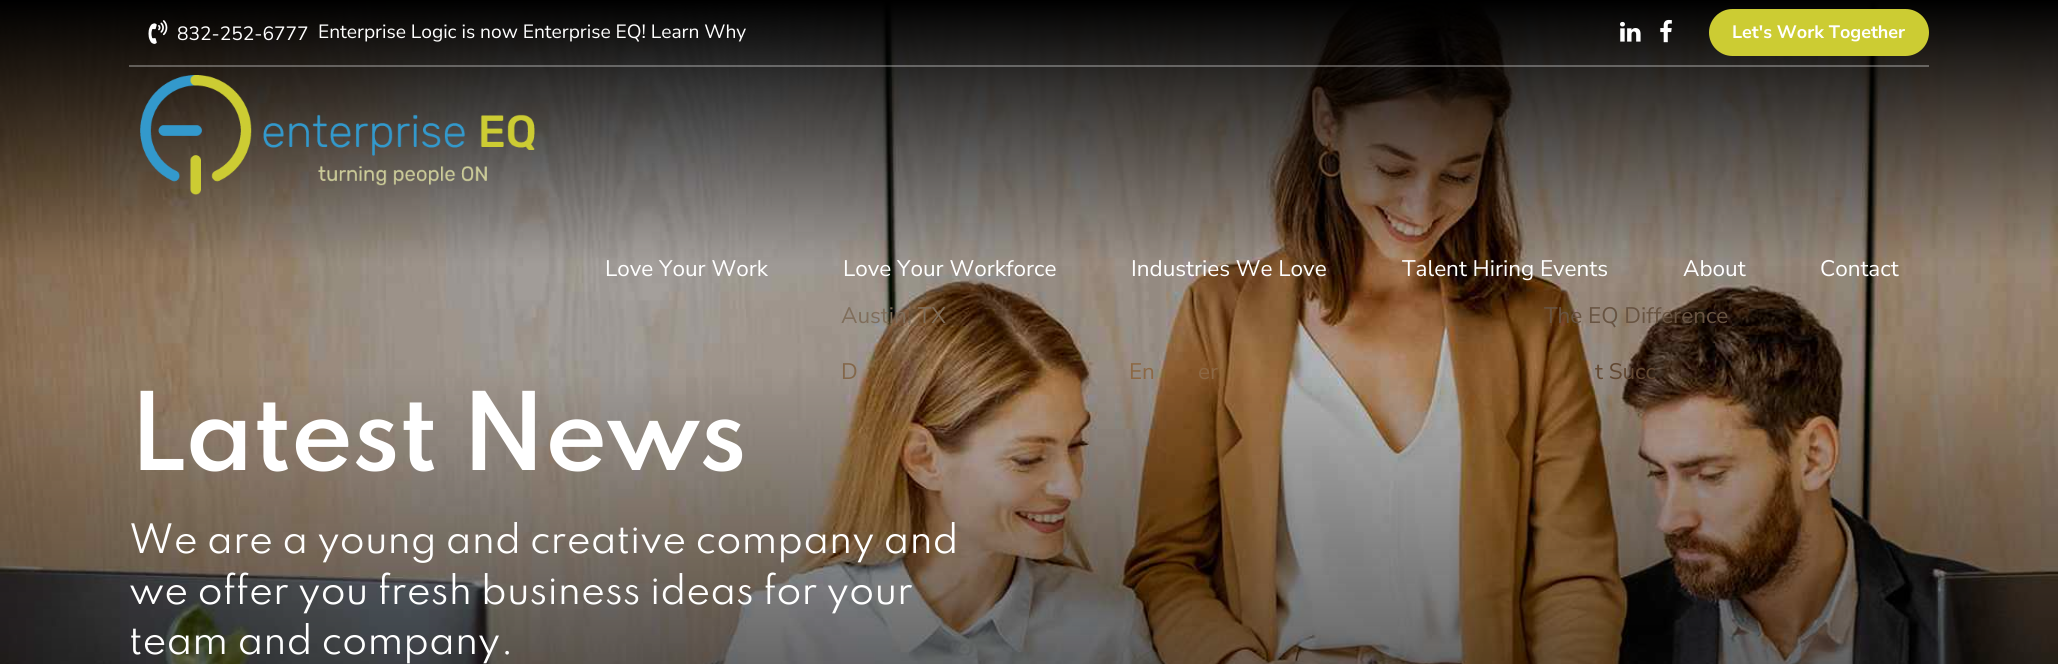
import math
import cairo

surface = cairo.ImageSurface(cairo.FORMAT_RGB24, 2058, 664)
c = cairo.Context(surface)
options = cairo.FontOptions()
options.set_hint_metrics(cairo.HINT_METRICS_OFF)
options.set_hint_style(cairo.HINT_STYLE_NONE)
c.set_font_options(options)
c.set_miter_limit(4)
def C(code):
 c.set_source_rgb(*(v / 255 for v in bytes.fromhex(code[-6:])))
def F(family, size, italic, bold):
 c.select_font_face(family, cairo.FONT_SLANT_ITALIC if italic else cairo.FONT_SLANT_NORMAL, cairo.FONT_WEIGHT_BOLD if bold else cairo.FONT_WEIGHT_NORMAL)
 c.set_font_size(size)
def T(x, y, s):
 c.move_to(x, y)
 c.show_text(s)
def L(x, y, s, letter, word):
 c.move_to(x, y)
 for ch in s:
  c.show_text(ch)
  c.rel_move_to(letter + word * (ch == ' '), 0)
def R(x, y, w, h):
 c.rectangle(x, y, w, h)
 c.fill()
def Q(x, y, w, h, r):
 c.new_sub_path()
 for i, (u, v) in enumerate([(x + w - r, y + h - r), (x + r, y + h - r), (x + r, y + r), (x + w - r, y + r)]):
  c.arc(u, v, r, i * math.pi / 2, (i + 1) * math.pi / 2)
 c.close_path()
def I(path, x, y, w, h):
 c.save()
 c.set_source_surface(cairo.ImageSurface.create_from_png(path), x, y)
 c.rectangle(x, y, w, h)
 c.fill()
 c.restore()
C('ffffff')
c.paint()
I('5.png',0,0,2058,664)
c.set_source_rgba(1,1,1,0.3)
R(129,65,1044,2)
I('1.png',148,20,20,24)
F('Nunito Sans',19.2,0,0)
C('ffffff')
T(177,40,'832-252-6777')
T(318,38,'Enterprise Logic is now Enterprise EQ! Learn Why')
c.set_source_rgba(1,1,1,0.3)
R(1173,65,756,2)
I('2.png',1620,21,21,21)
I('3.png',1660,19,12,24)
C('cccc33')
Q(1709,9,220,47,23.5)
c.fill()
F('Nunito Sans',18,0,1)
C('ffffff')
T(1732,38,'Let\'s Work Together')
I('4.png',140,75,395,120)
F('Nunito Sans',22.5,0,0)
T(605,276,'Love Your Work')
T(843,276,'Love Your Workforce')
C('7f6e5b')
T(841,323,'Austin, TX')
C('83674a')
T(841,379,'D')
C('ffffff')
T(1131,276,'Industries We Love')
C('8c6844')
T(1129,379,'En')
T(1198,379,'er')
C('ffffff')
T(1402,276,'Talent Hiring Events')
T(1683,276,'About')
C('685442')
T(1544,323,'The EQ Difference')
C('624832')
T(1595,379,'t Succ')
C('ffffff')
T(1820,276,'Contact')
F('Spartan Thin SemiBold',96,0,0)
L(129,470,'Latest News',-1.5,0)
F('Spartan Thin',36,0,0)
T(129,553,'We are a young and creative company and')
T(129,604,'we offer you fresh business ideas for your')
T(129,654,'team and company.')
surface.write_to_png('o.png')
